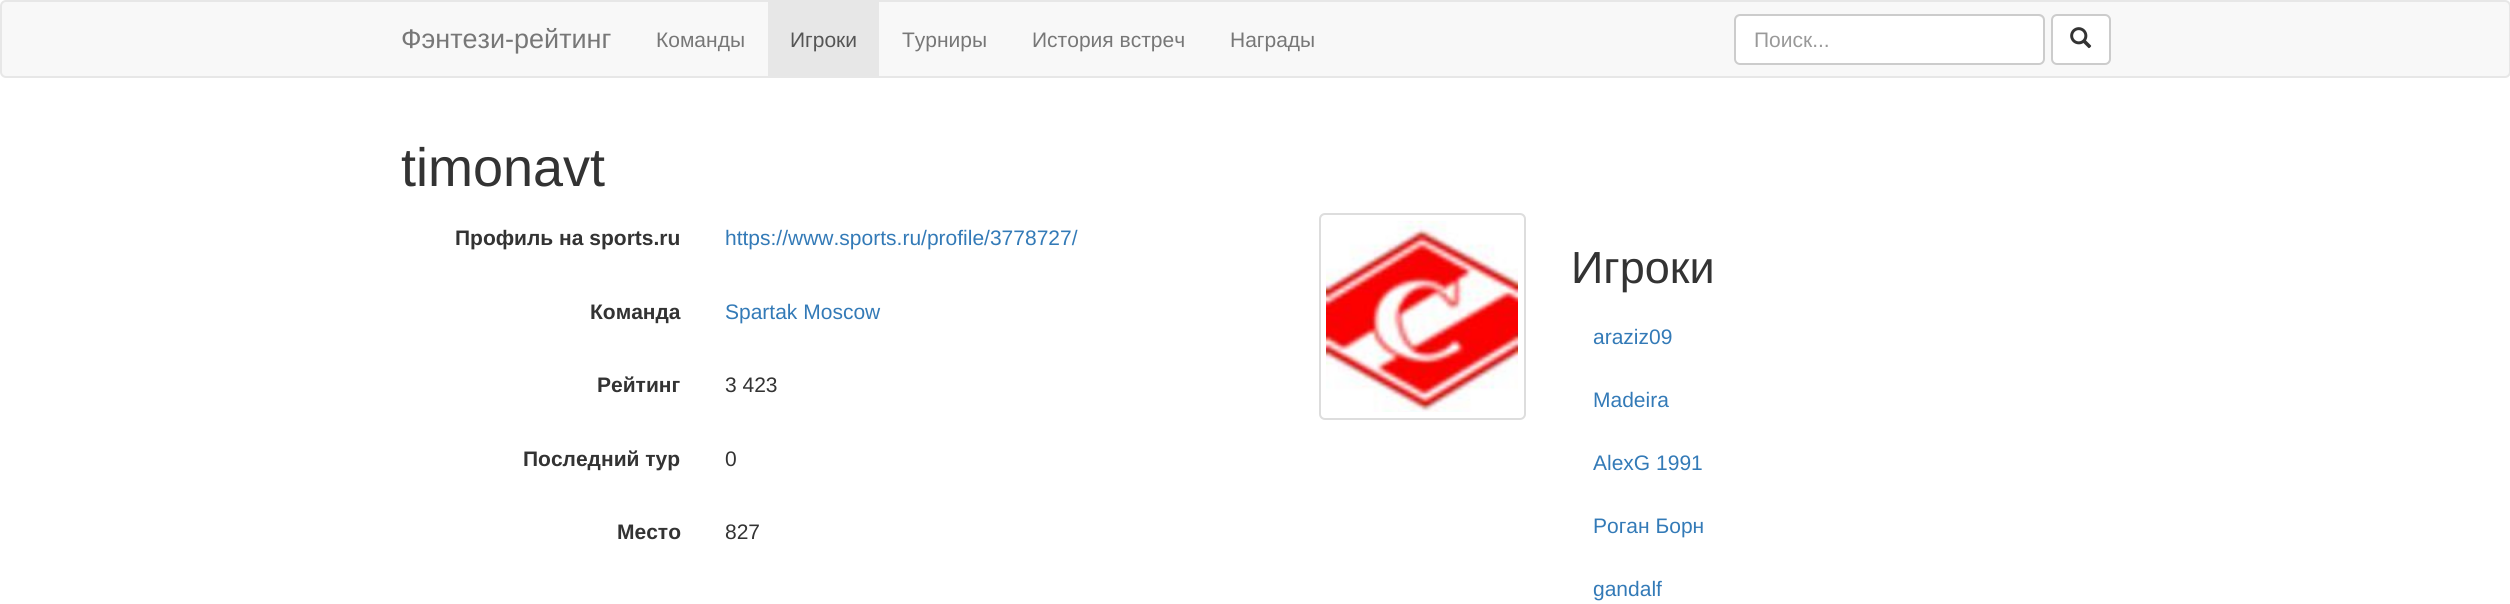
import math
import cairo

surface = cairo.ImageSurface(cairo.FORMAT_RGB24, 2510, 604)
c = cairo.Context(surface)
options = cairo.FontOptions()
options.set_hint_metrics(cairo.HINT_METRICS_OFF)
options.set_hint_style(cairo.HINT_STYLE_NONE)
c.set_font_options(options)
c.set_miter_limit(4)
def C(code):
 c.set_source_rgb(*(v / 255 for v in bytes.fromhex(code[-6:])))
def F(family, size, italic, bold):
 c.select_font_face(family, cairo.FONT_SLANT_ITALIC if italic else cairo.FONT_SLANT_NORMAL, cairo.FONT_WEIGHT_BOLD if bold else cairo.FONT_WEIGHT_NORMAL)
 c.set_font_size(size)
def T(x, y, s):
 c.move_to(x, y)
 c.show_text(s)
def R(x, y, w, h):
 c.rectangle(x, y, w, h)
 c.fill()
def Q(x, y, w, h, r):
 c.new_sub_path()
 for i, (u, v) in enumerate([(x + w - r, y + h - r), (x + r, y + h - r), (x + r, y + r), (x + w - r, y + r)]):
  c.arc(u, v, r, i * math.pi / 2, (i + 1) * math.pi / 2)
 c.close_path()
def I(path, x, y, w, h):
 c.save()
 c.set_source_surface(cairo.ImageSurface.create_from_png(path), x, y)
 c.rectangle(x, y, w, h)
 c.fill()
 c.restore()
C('ffffff')
c.paint()
C('f8f8f8')
Q(1,1,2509,76,5)
c.fill_preserve()
C('e7e7e7')
c.stroke()
F('Liberation Sans',27,0,0)
C('777777')
T(401,48,'Фэнтези-рейтинг')
F('Liberation Sans',21,0,0)
T(656,47,'Команды')
C('e7e7e7')
R(768,2,111,74)
C('555555')
T(790,47,'Игроки')
C('777777')
T(902,47,'Турниры')
T(1032,47,'История встреч')
T(1230,47,'Награды')
C('ffffff')
Q(1734,14,311,51,6)
c.fill()
C('ececec')
c.new_path()
c.move_to(1740,16)
c.line_to(2038,16)
c.curve_to(2041,16,2043,19,2043,21)
c.curve_to(2043,18,2041,15,2038,15)
c.line_to(1741,15)
c.curve_to(1738,15,1736,18,1736,21)
c.curve_to(1736,19,1738,16,1740,16)
c.close_path()
c.fill()
Q(1735,15,309,49,5)
C('cccccc')
c.stroke()
C('999999')
T(1754,47,'Поиск...')
C('ffffff')
Q(2052,15,58,49,5)
c.fill_preserve()
C('cccccc')
c.stroke()
I('1.png',2070,27,22,22)
F('Liberation Sans',54,0,0)
C('333333')
T(401,186,'timonavt')
F('Liberation Sans',21,0,1)
T(455,245,'Профиль на sports.ru')
F('Liberation Sans',21,0,0)
C('337ab7')
T(725,245,'https://www.sports.ru/profile/3778727/')
F('Liberation Sans',21,0,1)
C('333333')
T(590,319,'Команда')
F('Liberation Sans',21,0,0)
C('337ab7')
T(725,319,'Spartak Moscow')
F('Liberation Sans',21,0,1)
C('333333')
T(597,392,'Рейтинг')
F('Liberation Sans',21,0,0)
T(725,392,'3 423')
F('Liberation Sans',21,0,1)
T(523,466,'Последний тур')
F('Liberation Sans',21,0,0)
T(725,466,'0')
F('Liberation Sans',21,0,1)
T(617,539,'Место')
F('Liberation Sans',21,0,0)
T(725,539,'827')
Q(1320,214,205,205,5)
C('dddddd')
c.stroke()
I('2.png',1326,220,192,192)
F('Liberation Sans',45,0,0)
C('333333')
T(1571,283,'Игроки')
F('Liberation Sans',21,0,0)
C('337ab7')
T(1593,344,'araziz09')
T(1593,407,'Madeira')
T(1593,470,'AlexG 1991')
T(1593,533,'Роган Борн')
T(1593,596,'gandalf')
surface.write_to_png('o.png')
